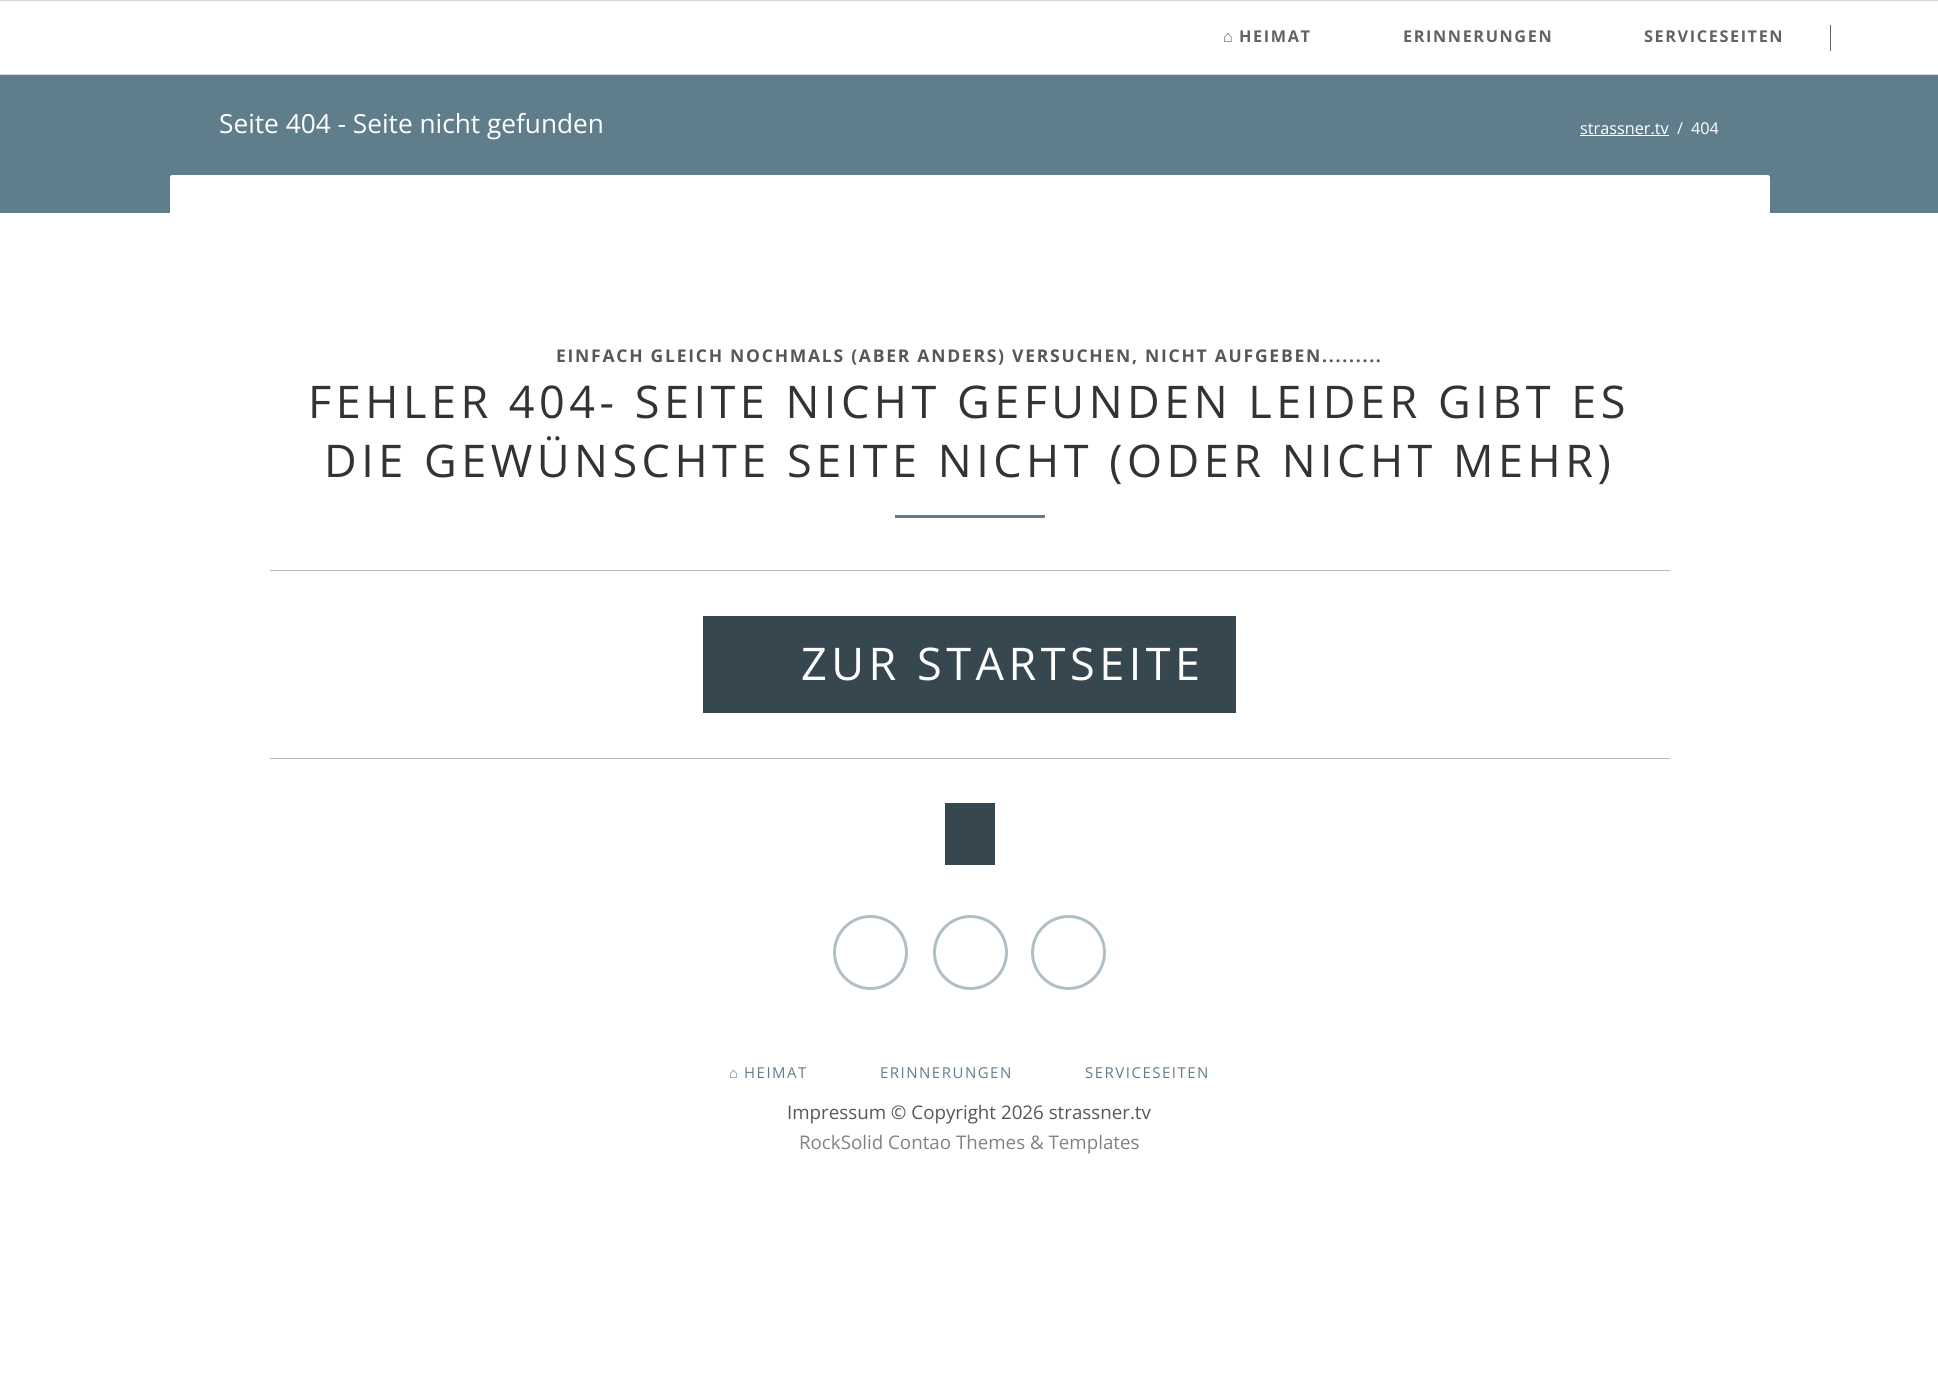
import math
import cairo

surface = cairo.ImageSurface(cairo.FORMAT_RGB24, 1938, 1389)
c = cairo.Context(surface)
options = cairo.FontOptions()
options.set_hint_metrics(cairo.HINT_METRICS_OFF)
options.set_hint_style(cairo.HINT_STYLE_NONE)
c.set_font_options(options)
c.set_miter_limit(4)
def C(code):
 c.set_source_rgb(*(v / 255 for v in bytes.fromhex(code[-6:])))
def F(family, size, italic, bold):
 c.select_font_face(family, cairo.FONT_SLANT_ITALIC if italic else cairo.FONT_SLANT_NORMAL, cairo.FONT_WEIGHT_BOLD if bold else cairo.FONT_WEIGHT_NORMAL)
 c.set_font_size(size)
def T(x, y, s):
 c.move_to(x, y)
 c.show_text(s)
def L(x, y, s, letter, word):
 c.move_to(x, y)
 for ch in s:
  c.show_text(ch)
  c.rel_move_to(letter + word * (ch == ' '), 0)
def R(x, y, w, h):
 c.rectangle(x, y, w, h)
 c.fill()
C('ffffff')
c.paint()
C('cfd8dc')
R(0,0,1938,1)
R(0,74,1938,1)
F('Liberation Serif',16.25,0,0)
C('636363')
L(1223,42,'⌂',1.6,0)
F('Open Sans',16.25,0,1)
L(1239,42,'HEIMAT',1.6,0)
L(1403,42,'ERINNERUNGEN',1.6,0)
L(1644,42,'SERVICESEITEN',1.6,0)
R(1830,25,1,26)
C('607d8b')
R(0,75,1938,138)
F('Open Sans',26.25,0,0)
C('ffffff')
T(219,133,'Seite 404 - Seite nicht gefunden')
F('Open Sans',16.25,0,0)
T(1580,134,'strassner.tv')
R(1580,135,89,1)
T(1677,134,'/')
T(1691,134,'404')
c.new_path()
c.move_to(172.5,175)
c.line_to(1767.5,175)
c.curve_to(1769,175,1770,176,1770,177.5)
c.line_to(1770,834)
c.line_to(170,834)
c.line_to(170,177.5)
c.curve_to(170,176,171,175,172.5,175)
c.close_path()
c.fill()
F('Open Sans',17.5,0,1)
C('575757')
L(556,362,'EINFACH GLEICH NOCHMALS (ABER ANDERS) VERSUCHEN, NICHT AUFGEBEN.........',1.75,0)
F('Open Sans',45,0,0)
C('333333')
L(308,418,'FEHLER 404- SEITE NICHT GEFUNDEN LEIDER GIBT ES',4.5,0)
L(324,477,'DIE GEWÜNSCHTE SEITE NICHT (ODER NICHT MEHR)',4.5,0)
C('607d8b')
R(895,515,150,3)
C('b0bec5')
R(270,570,1400,1)
C('37474f')
R(703,616,533,97)
C('ffffff')
L(801,680,'ZUR STARTSEITE',4.5,0)
C('b0bec5')
R(270,758,1400,1)
C('37474f')
R(945,803,50,62)
c.new_path()
c.arc(870.5,952.5,36,0,2 * math.pi)
C('b0bec5')
c.set_line_width(3)
c.stroke()
c.arc(970.5,952.5,36,0,2 * math.pi)
c.stroke()
c.arc(1068.5,952.5,36,0,2 * math.pi)
c.stroke()
F('Liberation Serif',15,0,0)
C('607d8b')
L(729,1078,'⌂',1.5,0)
F('Open Sans',15,0,0)
L(744,1078,'HEIMAT',1.5,0)
L(880,1078,'ERINNERUNGEN',1.5,0)
L(1085,1078,'SERVICESEITEN',1.5,0)
F('Open Sans',18.75,0,0)
C('575757')
T(787,1119,'Impressum © Copyright 2026 strassner.tv')
C('818181')
T(799,1149,'RockSolid Contao Themes & Templates')
surface.write_to_png('o.png')
